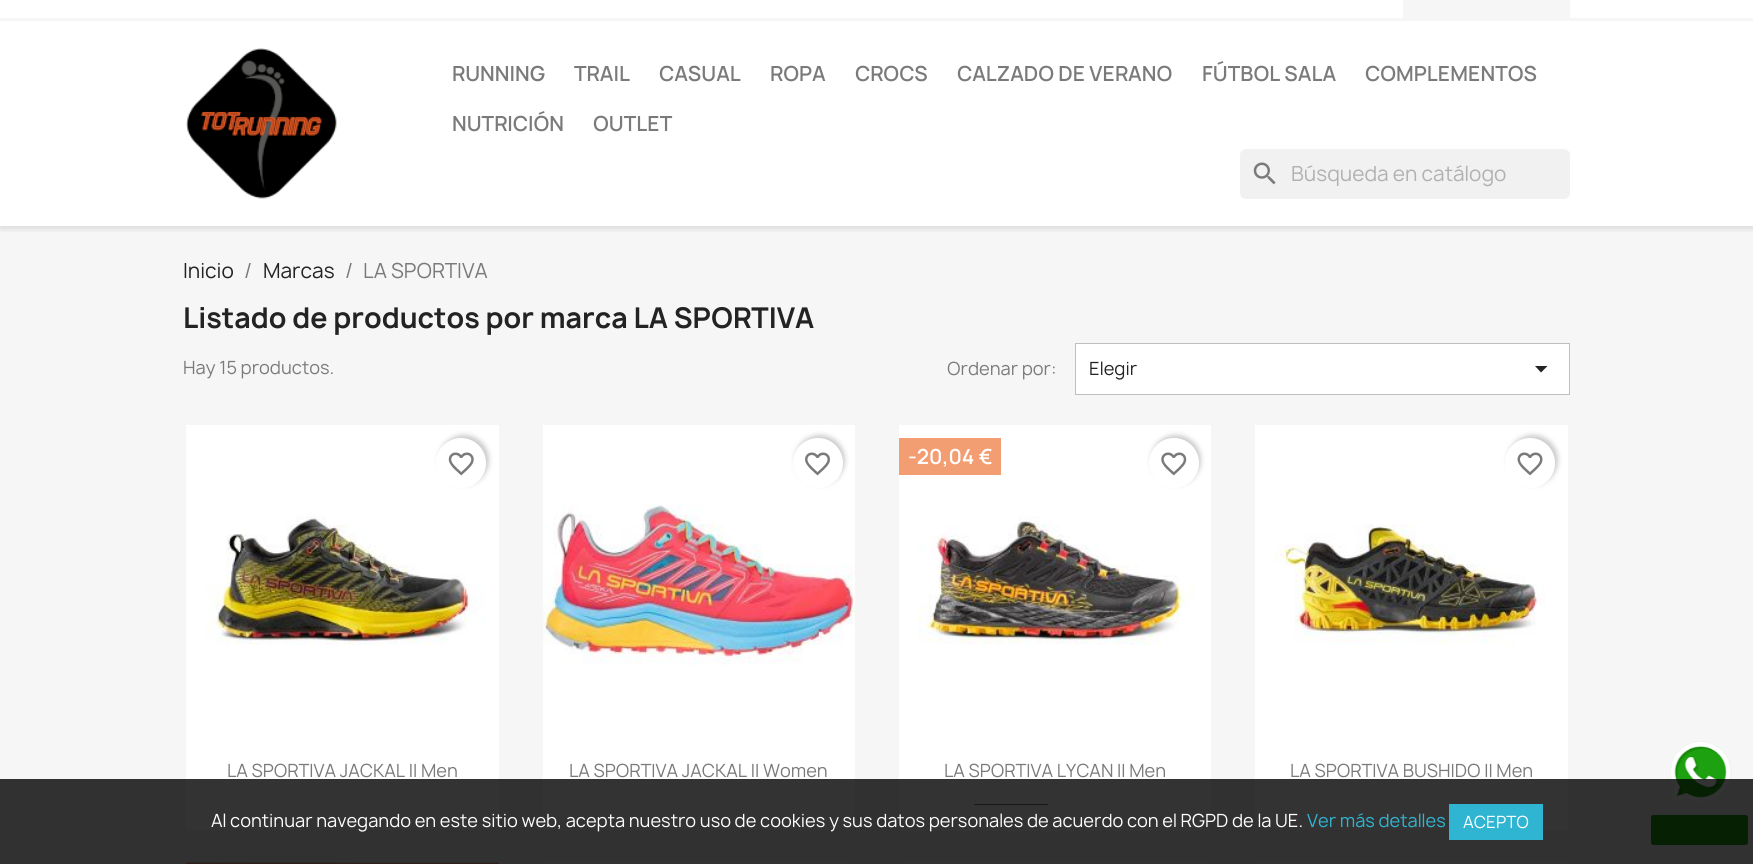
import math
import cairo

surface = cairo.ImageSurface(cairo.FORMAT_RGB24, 1753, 864)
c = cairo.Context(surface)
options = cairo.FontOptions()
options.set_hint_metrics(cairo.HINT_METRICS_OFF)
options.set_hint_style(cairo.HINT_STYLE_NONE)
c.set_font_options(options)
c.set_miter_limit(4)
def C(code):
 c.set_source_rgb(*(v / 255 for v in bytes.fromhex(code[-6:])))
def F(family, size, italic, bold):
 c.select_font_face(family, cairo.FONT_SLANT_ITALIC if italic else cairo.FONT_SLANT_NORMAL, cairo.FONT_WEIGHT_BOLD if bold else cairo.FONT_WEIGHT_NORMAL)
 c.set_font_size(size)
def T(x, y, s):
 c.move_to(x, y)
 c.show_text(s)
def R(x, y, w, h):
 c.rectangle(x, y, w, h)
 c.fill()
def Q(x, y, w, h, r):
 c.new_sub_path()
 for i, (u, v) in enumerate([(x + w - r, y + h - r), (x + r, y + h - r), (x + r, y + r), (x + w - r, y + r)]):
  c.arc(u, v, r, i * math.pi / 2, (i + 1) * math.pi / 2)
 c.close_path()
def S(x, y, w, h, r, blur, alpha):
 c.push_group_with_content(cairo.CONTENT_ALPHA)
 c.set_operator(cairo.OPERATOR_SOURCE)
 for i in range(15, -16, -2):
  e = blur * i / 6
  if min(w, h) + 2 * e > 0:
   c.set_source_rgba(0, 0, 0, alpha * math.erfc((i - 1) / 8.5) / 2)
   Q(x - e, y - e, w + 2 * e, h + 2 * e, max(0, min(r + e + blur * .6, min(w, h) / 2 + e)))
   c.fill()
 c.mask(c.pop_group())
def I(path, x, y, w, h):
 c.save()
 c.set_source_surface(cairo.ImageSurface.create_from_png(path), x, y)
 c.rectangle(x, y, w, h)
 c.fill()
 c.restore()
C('ffffff')
c.paint()
C('f6f6f6')
R(0,226,1753,638)
c.save()
c.rectangle(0,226,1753,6)
c.clip()
C('000000')
S(0,-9,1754,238,0,3,.11)
c.restore()
R(0,18,1753,3)
R(1403,0,167,18)
I('1.png',186,48,151,151)
F('Manrope SemiBold',20,0,0)
C('7a7a7a')
T(452,81,'RUNNING')
T(574,81,'TRAIL')
T(659,81,'CASUAL')
T(770,81,'ROPA')
T(855,81,'CROCS')
T(957,81,'CALZADO DE VERANO')
T(1202,81,'FÚTBOL SALA')
T(1365,81,'COMPLEMENTOS')
T(452,131,'NUTRICIÓN')
T(593,131,'OUTLET')
C('f1f1f1')
Q(1240,149,330,50,6)
c.fill()
I('2.png',1253,162,23,23)
F('Manrope',20,0,0)
C('b1b1b1')
T(1291,181,'Búsqueda en catálogo')
C('232323')
T(183,278,'Inicio')
C('7a7a7a')
T(244,278,'/')
C('232323')
T(263,278,'Marcas')
C('7a7a7a')
T(345,278,'/')
T(363,278,'LA SPORTIVA')
F('Manrope',27.5,0,1)
C('232323')
T(183,328,'Listado de productos por marca LA SPORTIVA')
F('Manrope',17.5,0,0)
C('7a7a7a')
T(183,374,'Hay 15 productos.')
T(947,375,'Ordenar por:')
C('ffffff')
c.rectangle(1075.5,343.5,494,51)
c.fill_preserve()
C('bfbfbf')
c.set_line_width(1)
c.stroke()
C('232323')
T(1089,375,'Elegir')
c.new_path()
c.move_to(1535,366)
c.line_to(1547.5,366)
c.line_to(1541,372.5)
c.close_path()
c.fill()
C('ffffff')
R(186,425,313,405)
C('000000')
S(439,435,50,50,25,2.5,.2)
C('ffffff')
c.arc(461,463,25,0,2 * math.pi)
c.fill()
I('3.png',448,452,26,24)
I('4.png',206,515,280,130)
C('7a7a7a')
T(227,777,'LA SPORTIVA JACKAL II Men')
C('ffffff')
R(543,425,312,405)
C('000000')
S(795,435,50,50,25,2.5,.2)
C('ffffff')
c.arc(818,463,25,0,2 * math.pi)
c.fill()
I('5.png',805,452,25,24)
I('6.png',543,504,312,161)
C('7a7a7a')
T(569,777,'LA SPORTIVA JACKAL II Women')
C('ffffff')
R(899,425,312,406)
C('f39d72')
R(899,438,102,37)
F('Manrope SemiBold',20,0,0)
C('ffffff')
T(908,464,'-20,04 €')
C('000000')
S(1151,435,50,50,25,2.5,.2)
C('ffffff')
c.arc(1174,463,25,0,2 * math.pi)
c.fill()
I('7.png',1161,452,26,24)
I('8.png',918,516,276,129)
F('Manrope',17.5,0,0)
C('7a7a7a')
T(944,777,'LA SPORTIVA LYCAN II Men')
R(974,804,74,1)
C('ffffff')
R(1255,425,313,405)
C('000000')
S(1508,435,50,50,25,2.5,.2)
C('ffffff')
c.arc(1530,463,25,0,2 * math.pi)
c.fill()
I('9.png',1517,452,26,24)
I('10.png',1274,524,271,121)
C('7a7a7a')
T(1290,777,'LA SPORTIVA BUSHIDO II Men')
I('11.png',186,862,313,1)
C('f39d72')
R(186,863,313,1)
C('ffffff')
R(543,863,312,1)
R(899,863,312,1)
R(1255,863,313,1)
I('12.png',1668,741,64,63)
C('1da110')
Q(1651,815,97,30,2.5)
c.fill()
c.set_source_rgba(0,0,0,0.8)
R(0,779,1753,85)
C('ffffff')
T(211,827,'Al continuar navegando en este sitio web, acepta nuestro uso de cookies y sus datos personales de acuerdo con el RGPD de la UE.')
C('2fb5d2')
T(1307,827,'Ver más detalles')
R(1449,804,94,36)
F('Manrope',16.25,0,0)
C('ffffff')
T(1463,828,'ACEPTO')
surface.write_to_png('o.png')
